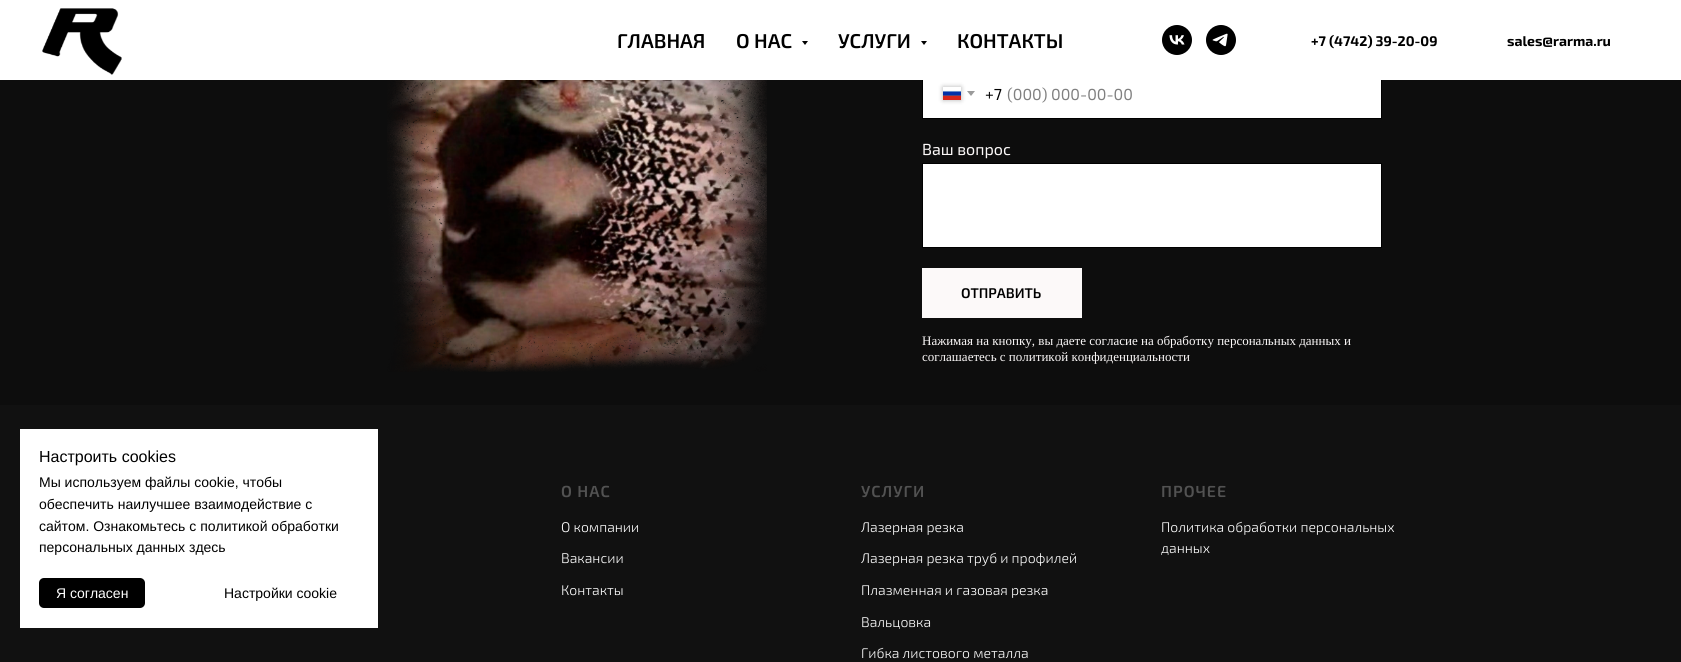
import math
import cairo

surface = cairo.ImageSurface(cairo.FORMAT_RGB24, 1681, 662)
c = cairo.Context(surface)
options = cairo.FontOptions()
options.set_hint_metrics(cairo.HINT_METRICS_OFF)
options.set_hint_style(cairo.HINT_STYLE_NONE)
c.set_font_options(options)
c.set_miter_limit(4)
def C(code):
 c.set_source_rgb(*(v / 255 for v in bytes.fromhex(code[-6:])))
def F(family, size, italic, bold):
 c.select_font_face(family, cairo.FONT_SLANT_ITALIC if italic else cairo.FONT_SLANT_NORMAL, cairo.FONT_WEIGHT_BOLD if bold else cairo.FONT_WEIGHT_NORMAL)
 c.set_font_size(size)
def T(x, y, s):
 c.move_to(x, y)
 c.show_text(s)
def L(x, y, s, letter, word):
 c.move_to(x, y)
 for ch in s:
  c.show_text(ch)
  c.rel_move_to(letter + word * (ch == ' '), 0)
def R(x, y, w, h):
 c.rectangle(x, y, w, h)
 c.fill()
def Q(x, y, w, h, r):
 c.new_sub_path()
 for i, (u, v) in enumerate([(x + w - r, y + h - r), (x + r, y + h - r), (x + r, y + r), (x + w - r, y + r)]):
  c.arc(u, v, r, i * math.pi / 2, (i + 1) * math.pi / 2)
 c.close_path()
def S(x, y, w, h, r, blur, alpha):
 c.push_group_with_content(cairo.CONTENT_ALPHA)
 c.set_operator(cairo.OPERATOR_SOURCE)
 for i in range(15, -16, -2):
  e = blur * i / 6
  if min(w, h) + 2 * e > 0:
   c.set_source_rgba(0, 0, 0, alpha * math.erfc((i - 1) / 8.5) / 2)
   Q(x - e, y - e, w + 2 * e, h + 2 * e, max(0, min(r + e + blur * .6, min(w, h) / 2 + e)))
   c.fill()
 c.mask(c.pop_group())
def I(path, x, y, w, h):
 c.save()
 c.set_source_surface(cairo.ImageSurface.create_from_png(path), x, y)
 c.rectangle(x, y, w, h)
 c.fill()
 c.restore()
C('111111')
c.paint()
C('0d0d0d')
R(0,80,1681,325)
C('ffffff')
R(923,80,458,38)
c.rectangle(922.5,69.5,459,49)
C('000000')
c.set_line_width(1)
c.stroke()
C('000000')
S(943,87,18,13,0,2.5,.3)
C('ffffff')
R(0,0,1681,80)
I('1.png',42,8,80,67)
F('Exo 2 SemiBold',20,0,0)
C('000000')
T(617,48,'ГЛАВНАЯ')
T(736,48,'О НАС')
c.new_path()
c.move_to(802,41)
c.line_to(808,41)
c.line_to(805,45)
c.close_path()
c.fill()
T(838,48,'УСЛУГИ')
c.new_path()
c.move_to(921,41)
c.line_to(927,41)
c.line_to(924,45)
c.close_path()
c.fill()
T(957,48,'КОНТАКТЫ')
I('2.png',1162,25,30,30)
I('3.png',1206,25,30,30)
F('Exo 2',14,0,1)
T(1311,46,'+7 (4742) 39-20-09')
T(1507,46,'sales@rarma.ru')
I('4.png',387,80,380,292)
I('5.png',943,87,18,13)
C('9a9a9a')
c.new_path()
c.move_to(967,91)
c.line_to(975,91)
c.line_to(971,96)
c.close_path()
c.fill()
F('Exo 2',16,0,0)
C('000000')
T(985,100,'+7')
C('808080')
T(1007,100,'(000) 000-00-00')
C('fcf9f9')
T(922,155,'Ваш вопрос')
C('ffffff')
c.rectangle(922.5,163.5,459,84)
c.fill_preserve()
C('000000')
c.stroke()
C('fcf9f9')
R(922,268,160,50)
F('Exo 2 SemiBold',14,0,0)
C('000000')
T(961,298,'ОТПРАВИТЬ')
F('Liberation Serif',13,0,0)
C('fcf9f9')
T(922,345,'Нажимая на кнопку, вы даете согласие на обработку персональных данных и')
T(922,361,'соглашаетесь c политикой конфиденциальности')
C('ffffff')
R(20,429,358,199)
F('Liberation Sans',16,0,0)
C('000000')
T(39,462,'Настроить cookies')
F('Liberation Sans',14,0,0)
T(39,487,'Мы используем файлы cookie, чтобы')
T(39,509,'обеспечить наилучшее взаимодействие с')
T(39,531,'сайтом. Ознакомьтесь с политикой обработки')
T(39,552,'персональных данных здесь')
Q(39,578,106,30,5)
c.fill()
C('ffffff')
T(56,598,'Я согласен')
C('000000')
T(224,598,'Настройки cookie')
F('Exo 2 SemiBold',16,0,0)
C('525252')
L(561,497,'О НАС',1,0)
F('Exo 2 Light',14,0,0)
C('ffffff')
T(561,532,'О компании')
T(561,563,'Вакансии')
T(561,595,'Контакты')
F('Exo 2 SemiBold',16,0,0)
C('525252')
L(861,497,'УСЛУГИ',1,0)
F('Exo 2 Light',14,0,0)
C('ffffff')
T(861,532,'Лазерная резка')
T(861,563,'Лазерная резка труб и профилей')
T(861,595,'Плазменная и газовая резка')
T(861,627,'Вальцовка')
T(861,658,'Гибка листового металла')
F('Exo 2 SemiBold',16,0,0)
C('525252')
L(1161,497,'ПРОЧЕЕ',1,0)
F('Exo 2 Light',14,0,0)
C('ffffff')
T(1161,532,'Политика обработки персональных')
T(1161,553,'данных')
surface.write_to_png('o.png')
